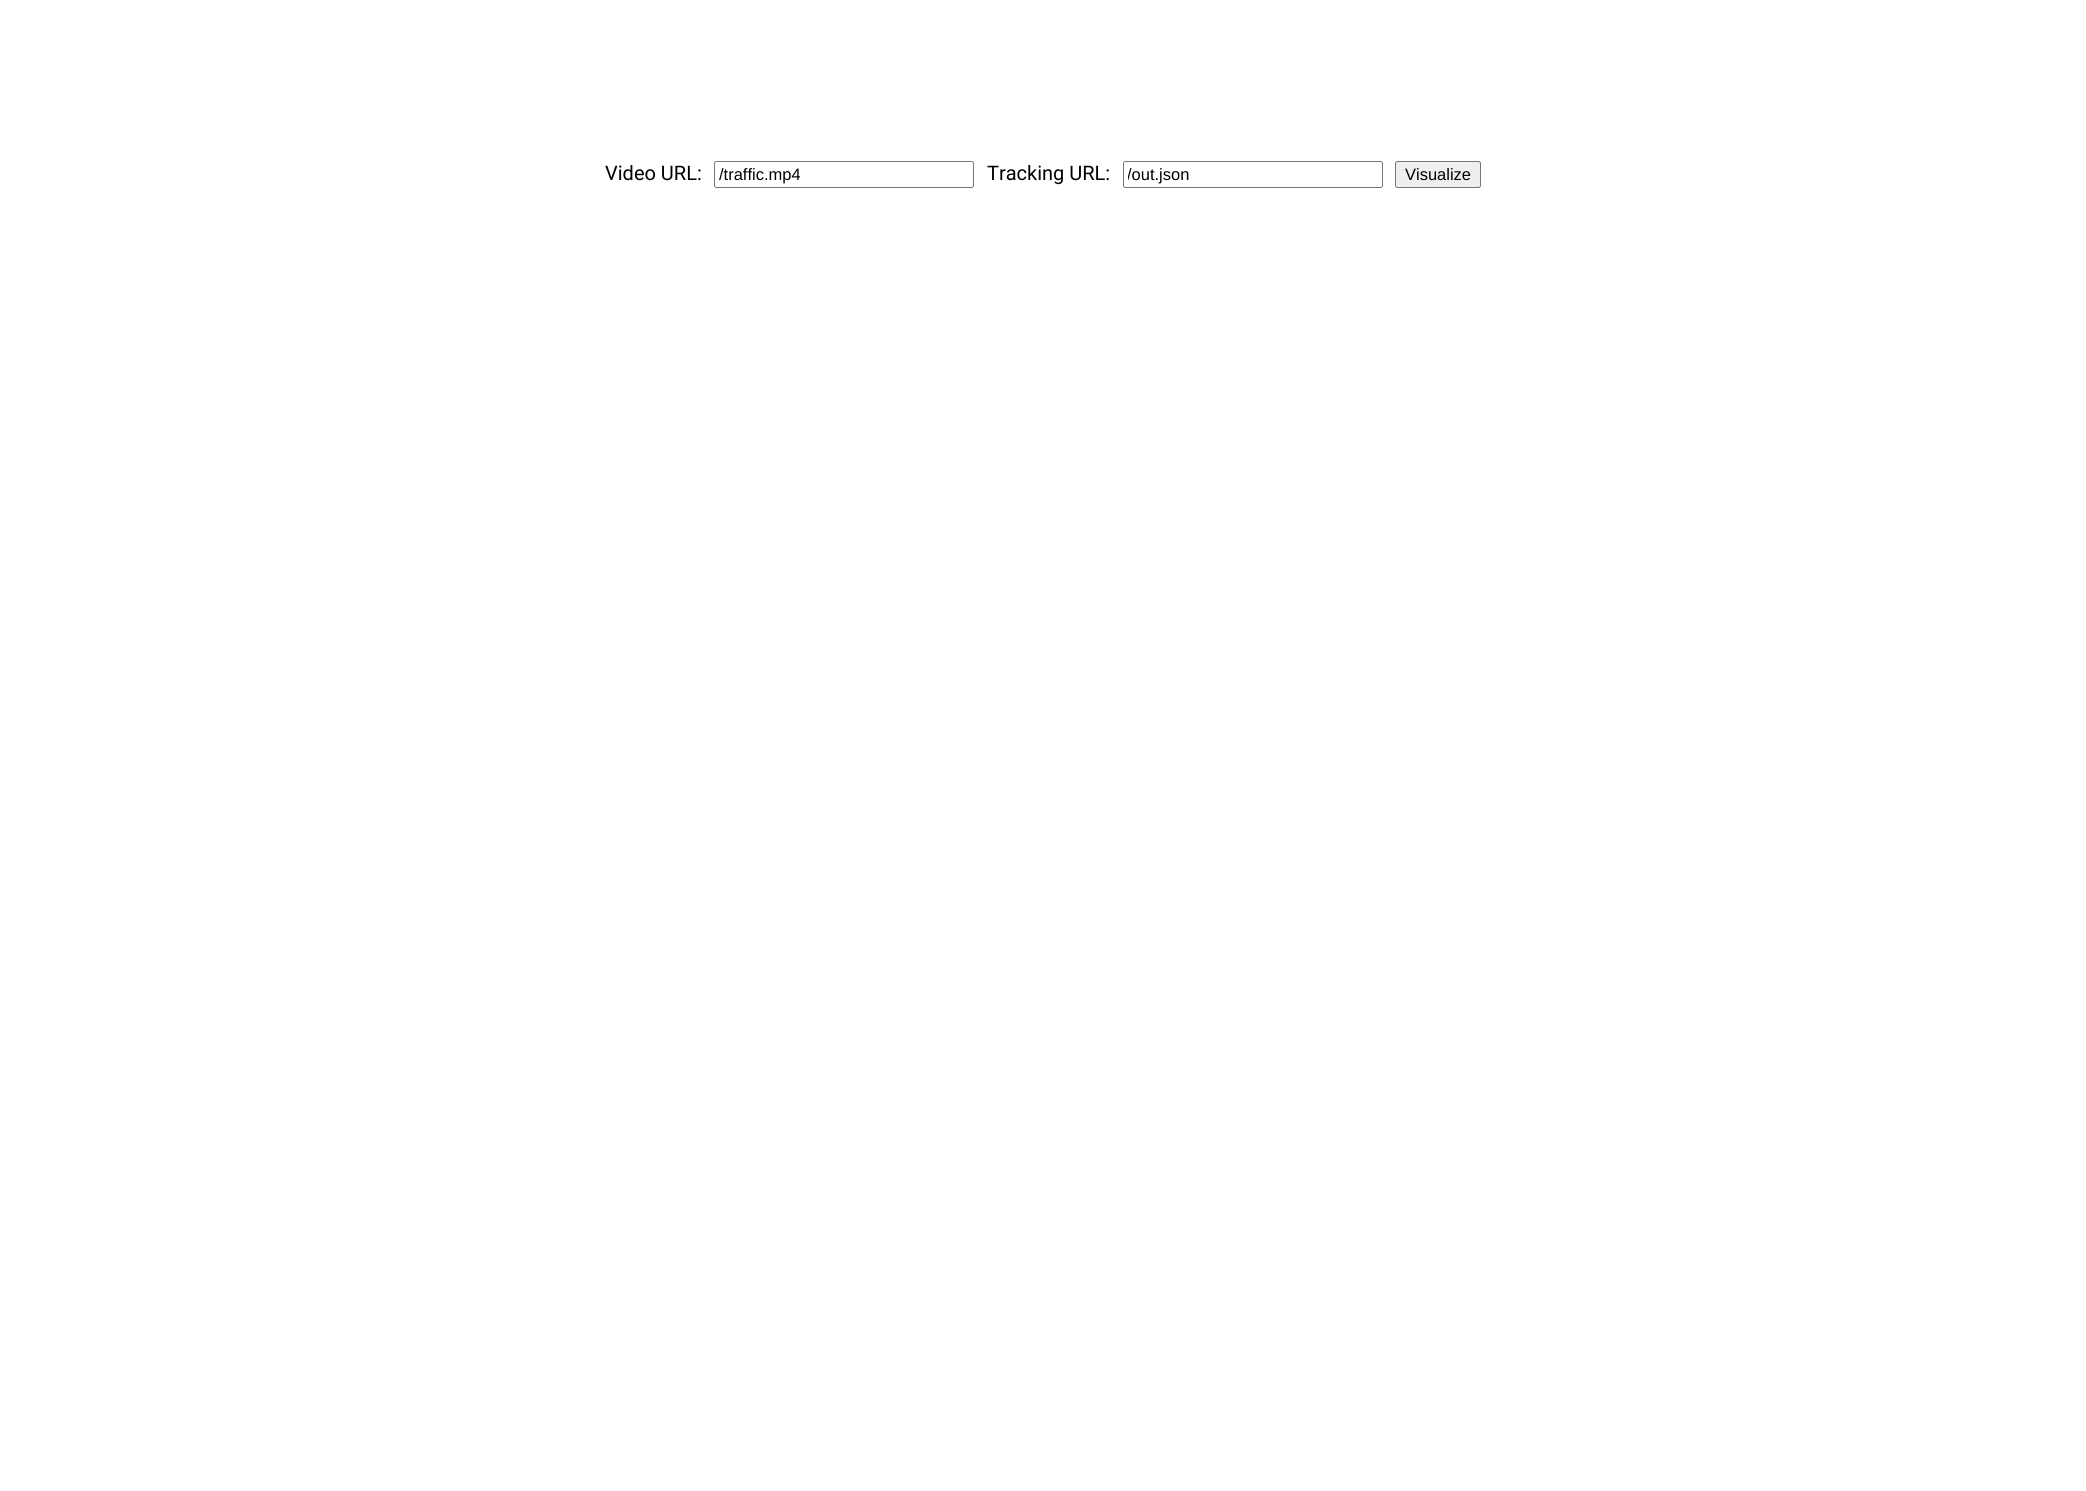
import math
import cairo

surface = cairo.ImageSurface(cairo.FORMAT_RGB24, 2086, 1491)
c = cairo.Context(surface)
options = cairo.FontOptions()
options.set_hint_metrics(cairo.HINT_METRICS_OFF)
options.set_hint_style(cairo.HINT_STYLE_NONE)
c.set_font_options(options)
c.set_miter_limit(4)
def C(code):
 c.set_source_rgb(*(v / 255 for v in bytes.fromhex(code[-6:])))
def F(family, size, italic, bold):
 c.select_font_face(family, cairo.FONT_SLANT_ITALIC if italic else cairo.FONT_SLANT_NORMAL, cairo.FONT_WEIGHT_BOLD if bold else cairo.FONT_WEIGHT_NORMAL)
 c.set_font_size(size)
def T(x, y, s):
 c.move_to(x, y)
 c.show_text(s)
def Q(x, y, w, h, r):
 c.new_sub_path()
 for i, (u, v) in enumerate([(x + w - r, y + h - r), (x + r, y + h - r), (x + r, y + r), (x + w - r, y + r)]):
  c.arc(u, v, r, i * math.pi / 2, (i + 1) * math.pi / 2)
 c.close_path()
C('ffffff')
c.paint()
F('Roboto',20,0,0)
C('000000')
T(605,180,'Video URL:')
Q(714.5,161.5,259,26,2)
C('767676')
c.set_line_width(1)
c.stroke()
F('Liberation Sans',16.5,0,0)
C('000000')
T(719,180,'/traffic.mp4')
F('Roboto',20,0,0)
T(987,180,'Tracking URL:')
Q(1123.5,161.5,259,26,2)
C('767676')
c.stroke()
c.save()
c.rectangle(1128,165,250,19)
c.clip()
F('Liberation Sans',16.5,0,0)
C('000000')
T(1127,180,'/out.json')
c.restore()
C('efefef')
Q(1395.5,161.5,85,26,2)
c.fill_preserve()
C('767676')
c.stroke()
F('Liberation Sans',16.5,0,0)
C('000000')
T(1405,180,'Visualize')
surface.write_to_png('o.png')
